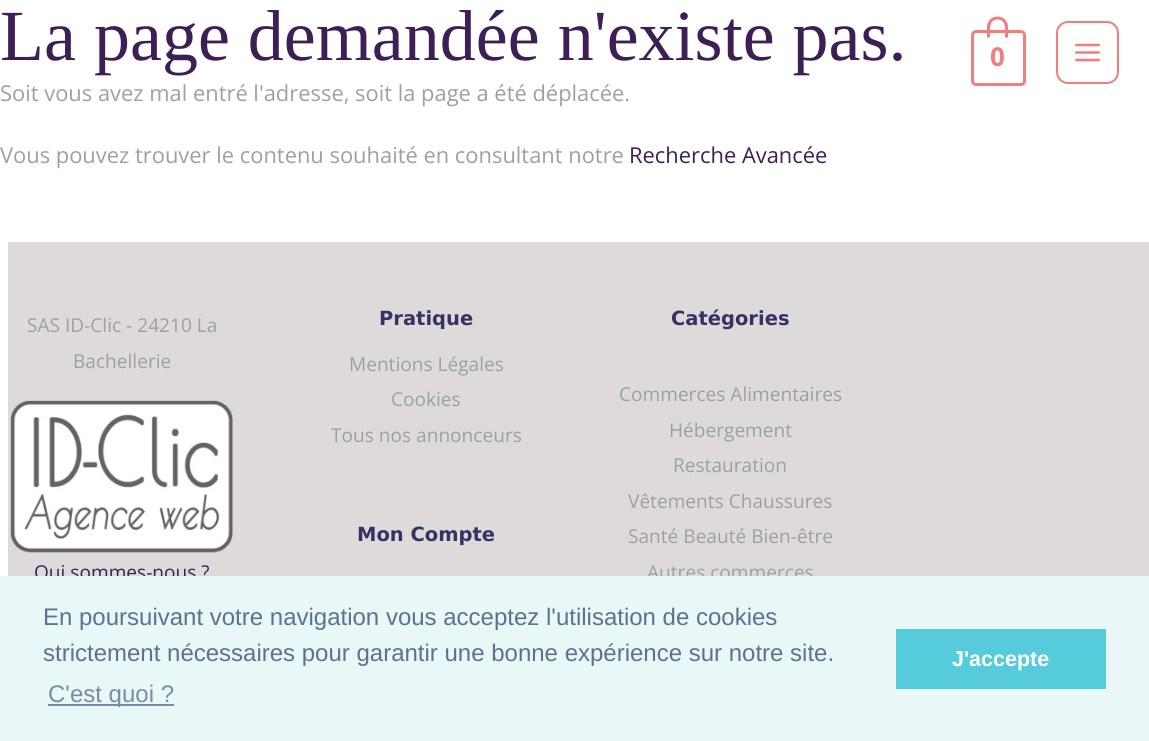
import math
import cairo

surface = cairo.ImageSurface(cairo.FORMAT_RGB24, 1149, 741)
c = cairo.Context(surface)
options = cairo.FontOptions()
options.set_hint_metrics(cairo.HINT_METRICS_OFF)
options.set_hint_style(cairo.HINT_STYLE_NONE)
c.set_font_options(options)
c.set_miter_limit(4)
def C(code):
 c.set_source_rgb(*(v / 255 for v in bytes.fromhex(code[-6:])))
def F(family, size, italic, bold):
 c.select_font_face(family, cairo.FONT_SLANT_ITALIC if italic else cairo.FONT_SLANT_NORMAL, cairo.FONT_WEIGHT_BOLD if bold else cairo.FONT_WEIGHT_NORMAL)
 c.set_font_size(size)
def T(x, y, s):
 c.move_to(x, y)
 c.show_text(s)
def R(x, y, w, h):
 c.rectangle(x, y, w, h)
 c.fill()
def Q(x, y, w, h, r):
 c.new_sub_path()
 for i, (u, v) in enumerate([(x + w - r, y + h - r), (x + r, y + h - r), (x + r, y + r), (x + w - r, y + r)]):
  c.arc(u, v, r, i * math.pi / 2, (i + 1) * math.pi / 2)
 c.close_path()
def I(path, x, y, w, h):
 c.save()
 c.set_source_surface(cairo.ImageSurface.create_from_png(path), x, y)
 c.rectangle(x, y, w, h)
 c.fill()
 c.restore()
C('ffffff')
c.paint()
F('Liberation Serif',72,0,0)
C('3e1f55')
T(0,60,'La page demandée n\'existe pas.')
F('Open Sans',21.9,0,0)
C('9f9f9f')
T(0,101,'Soit vous avez mal entré l\'adresse, soit la page a été déplacée.')
T(0,163,'Vous pouvez trouver le contenu souhaité en consultant notre')
C('3e1f55')
T(629,163,'Recherche Avancée')
C('dedada')
R(8,242,1141,334)
F('Open Sans',19.1,0,0)
C('9f9f9f')
T(27,332,'SAS ID-Clic - 24210 La')
T(73,368,'Bachellerie')
I('1.png',10,400,223,153)
C('3e1f55')
T(34,579,'Qui sommes-nous ?')
F('DejaVu Sans',19.5,0,1)
C('333366')
T(379,325,'Pratique')
F('Open Sans',19.1,0,0)
C('9f9f9f')
T(349,371,'Mentions Légales')
T(391,406,'Cookies')
T(331,442,'Tous nos annonceurs')
F('DejaVu Sans',19.5,0,1)
C('333366')
T(357,541,'Mon Compte')
T(671,325,'Catégories')
F('Open Sans',19.1,0,0)
C('9f9f9f')
T(619,401,'Commerces Alimentaires')
T(669,437,'Hébergement')
T(673,472,'Restauration')
T(628,508,'Vêtements Chaussures')
T(628,543,'Santé Beauté Bien-être')
T(647,579,'Autres commerces')
Q(972.5,31.5,52,53,3.5)
C('f47c7c')
c.set_line_width(3)
c.stroke()
c.set_fill_rule(cairo.FILL_RULE_EVEN_ODD)
c.new_path()
c.move_to(997.5,16.5)
c.curve_to(1003.5,16.5,1008,21,1008,27)
c.line_to(1008,37.5)
c.line_to(987,37.5)
c.line_to(987,27)
c.curve_to(987,21,991.5,16.5,997.5,16.5)
c.close_path()
c.move_to(997.5,19.5)
c.curve_to(1007,19.5,1005,31.5,1005,37.5)
c.line_to(990,37.5)
c.curve_to(990,31.5,988,19.5,997.5,19.5)
c.close_path()
c.fill()
F('Open Sans',26,0,1)
T(990,66,'0')
Q(1057,22,61,61,11)
c.set_line_width(2)
c.stroke()
I('2.png',1075,43,25,19)
C('eaf7f7')
R(0,576,1149,165)
F('Liberation Sans',24,0,0)
C('5c7291')
T(43,625,'En poursuivant votre navigation vous acceptez l\'utilisation de cookies')
T(43,661,'strictement nécessaires pour garantir une bonne expérience sur notre site.')
C('788da5')
R(48,704,126,2)
T(48,702,'C\'est quoi ?')
C('56cbdb')
R(896,629,210,60)
F('Liberation Sans',21.5,0,1)
C('ffffff')
T(952,666,'J\'accepte')
surface.write_to_png('o.png')
